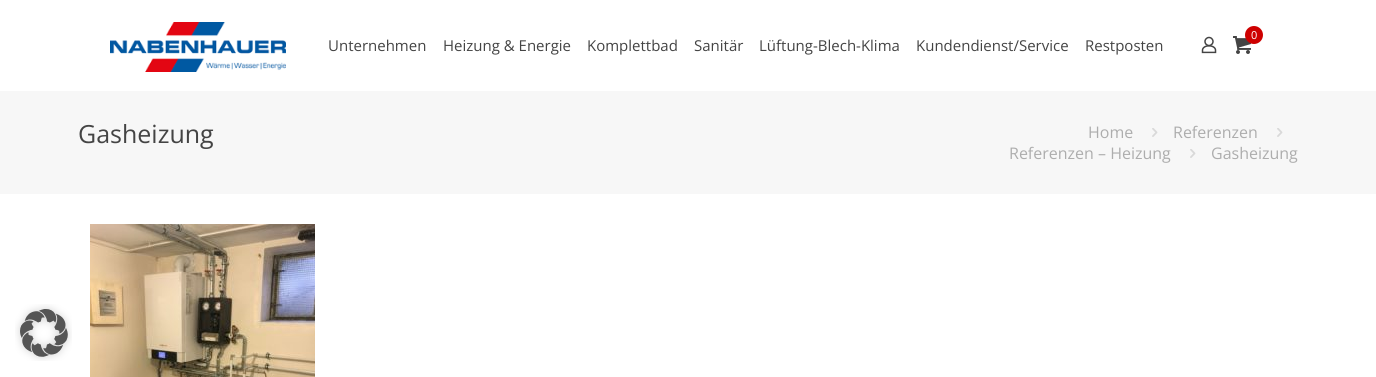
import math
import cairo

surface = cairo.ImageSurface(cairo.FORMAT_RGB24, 1376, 377)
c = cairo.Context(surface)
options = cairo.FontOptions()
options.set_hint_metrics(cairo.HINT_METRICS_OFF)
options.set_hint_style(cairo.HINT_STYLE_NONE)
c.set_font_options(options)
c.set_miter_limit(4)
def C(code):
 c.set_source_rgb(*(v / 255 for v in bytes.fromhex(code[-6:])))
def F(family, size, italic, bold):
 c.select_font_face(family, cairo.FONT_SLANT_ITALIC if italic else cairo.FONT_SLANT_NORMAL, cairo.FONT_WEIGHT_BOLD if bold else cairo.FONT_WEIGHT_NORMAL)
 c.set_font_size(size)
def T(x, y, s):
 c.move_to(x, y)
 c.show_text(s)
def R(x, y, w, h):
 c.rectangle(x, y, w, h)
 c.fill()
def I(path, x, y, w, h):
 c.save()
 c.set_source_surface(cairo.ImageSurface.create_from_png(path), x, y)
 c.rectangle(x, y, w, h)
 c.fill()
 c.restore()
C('ffffff')
c.paint()
I('1.png',1201,36,16,18)
I('2.png',1233,36,18,18)
C('ce0000')
c.arc(1254,35,9,0,2 * math.pi)
c.fill()
F('Open Sans',11,0,0)
C('ffffff')
T(1251,39,'0')
I('3.png',110,22,176,50)
F('Open Sans',15,0,0)
C('444444')
T(328,51,'Unternehmen')
T(443,51,'Heizung & Energie')
T(587,51,'Komplettbad')
T(694,51,'Sanitär')
T(759,51,'Lüftung-Blech-Klima')
T(916,51,'Kundendienst/Service')
T(1085,51,'Restposten')
C('f7f7f7')
R(0,91,1376,103)
F('Open Sans',25,0,0)
C('444444')
T(78,143,'Gasheizung')
F('Open Sans',16,0,0)
C('adadad')
T(1088,138,'Home')
I('4.png',1152,128,6,9)
T(1173,138,'Referenzen')
I('4.png',1277,128,6,9)
T(1009,159,'Referenzen – Heizung')
I('4.png',1190,149,6,9)
T(1211,159,'Gasheizung')
I('5.png',90,224,225,153)
I('6.png',15,304,57,57)
surface.write_to_png('o.png')
